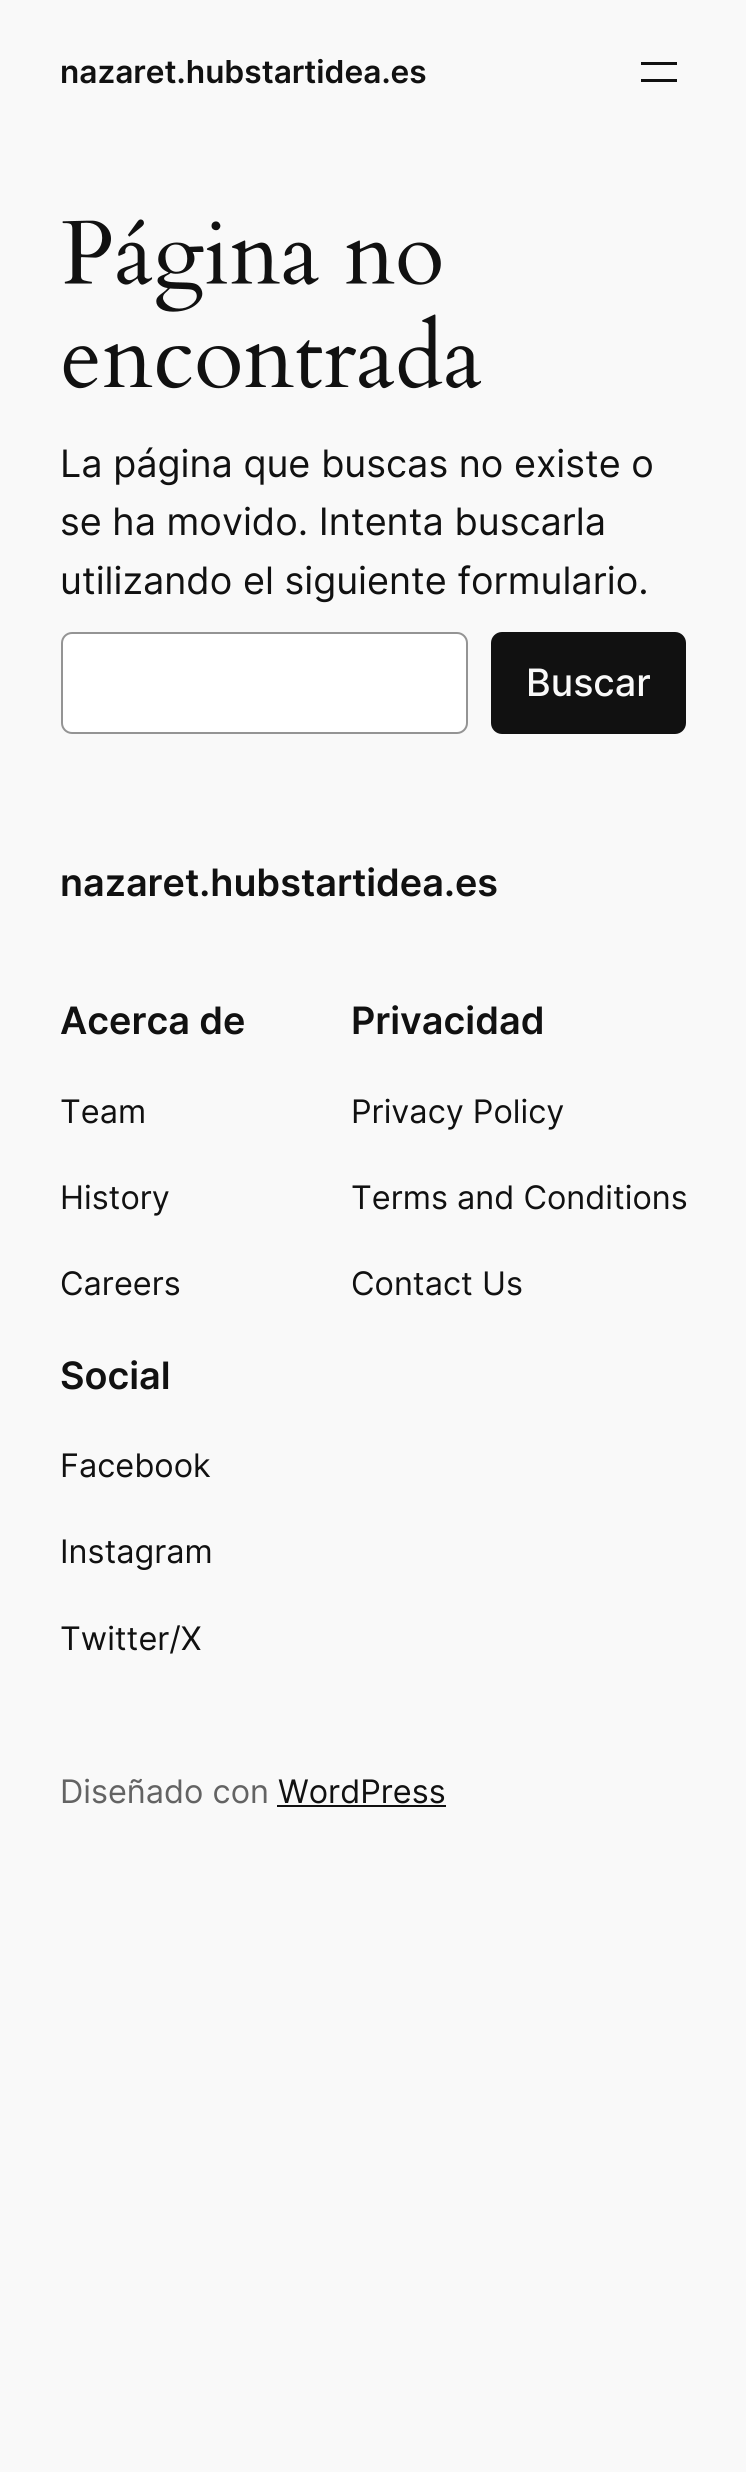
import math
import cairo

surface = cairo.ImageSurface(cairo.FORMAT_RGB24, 746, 2472)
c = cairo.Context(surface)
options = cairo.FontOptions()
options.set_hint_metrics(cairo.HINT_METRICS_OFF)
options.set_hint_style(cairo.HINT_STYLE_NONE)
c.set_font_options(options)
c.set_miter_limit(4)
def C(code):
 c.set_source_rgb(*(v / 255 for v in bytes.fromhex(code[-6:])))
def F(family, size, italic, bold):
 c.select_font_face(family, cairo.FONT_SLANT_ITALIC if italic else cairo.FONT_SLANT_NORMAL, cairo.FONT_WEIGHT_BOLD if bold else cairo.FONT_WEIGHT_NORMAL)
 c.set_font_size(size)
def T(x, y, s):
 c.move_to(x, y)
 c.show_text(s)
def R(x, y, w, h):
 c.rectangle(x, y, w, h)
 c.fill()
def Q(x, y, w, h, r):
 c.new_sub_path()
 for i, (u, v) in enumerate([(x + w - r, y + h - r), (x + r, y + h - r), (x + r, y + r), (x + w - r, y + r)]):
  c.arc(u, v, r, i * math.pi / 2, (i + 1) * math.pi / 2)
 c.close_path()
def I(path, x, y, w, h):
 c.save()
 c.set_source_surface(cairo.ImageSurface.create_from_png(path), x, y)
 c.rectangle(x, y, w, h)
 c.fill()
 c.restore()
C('f9f9f9')
c.paint()
F('Inter SemiBold',31.6,0,0)
C('111111')
T(60,83,'nazaret.hubstartidea.es')
R(641,62,36,3)
R(641,79,36,3)
I('1.png',62,219,379,93)
I('2.png',63,314,419,75)
F('Inter',37.75,0,0)
T(60,477,'La página que buscas no existe o')
T(60,535,'se ha movido. Intenta buscarla')
T(60,594,'utilizando el siguiente formulario.')
C('ffffff')
Q(62,633,405,100,10)
c.fill_preserve()
C('949494')
c.stroke()
C('111111')
Q(491,632,195,102,11)
c.fill()
F('Inter Medium',37.75,0,0)
C('f9f9f9')
T(526,696,'Buscar')
F('Inter SemiBold',37.75,0,0)
C('111111')
T(60,896,'nazaret.hubstartidea.es')
T(60,1034,'Acerca de')
F('Inter',32.4,0,0)
T(60,1123,'Team')
T(60,1209,'History')
T(60,1295,'Careers')
F('Inter SemiBold',37.75,0,0)
T(351,1034,'Privacidad')
F('Inter',32.4,0,0)
T(351,1123,'Privacy Policy')
T(351,1209,'Terms and Conditions')
T(351,1295,'Contact Us')
F('Inter SemiBold',37.75,0,0)
T(60,1389,'Social')
F('Inter',32.4,0,0)
T(60,1477,'Facebook')
T(60,1563,'Instagram')
T(60,1650,'Twitter/X')
C('636363')
T(60,1803,'Diseñado con')
C('111111')
T(278,1803,'WordPress')
R(277,1805,169,2)
surface.write_to_png('o.png')
